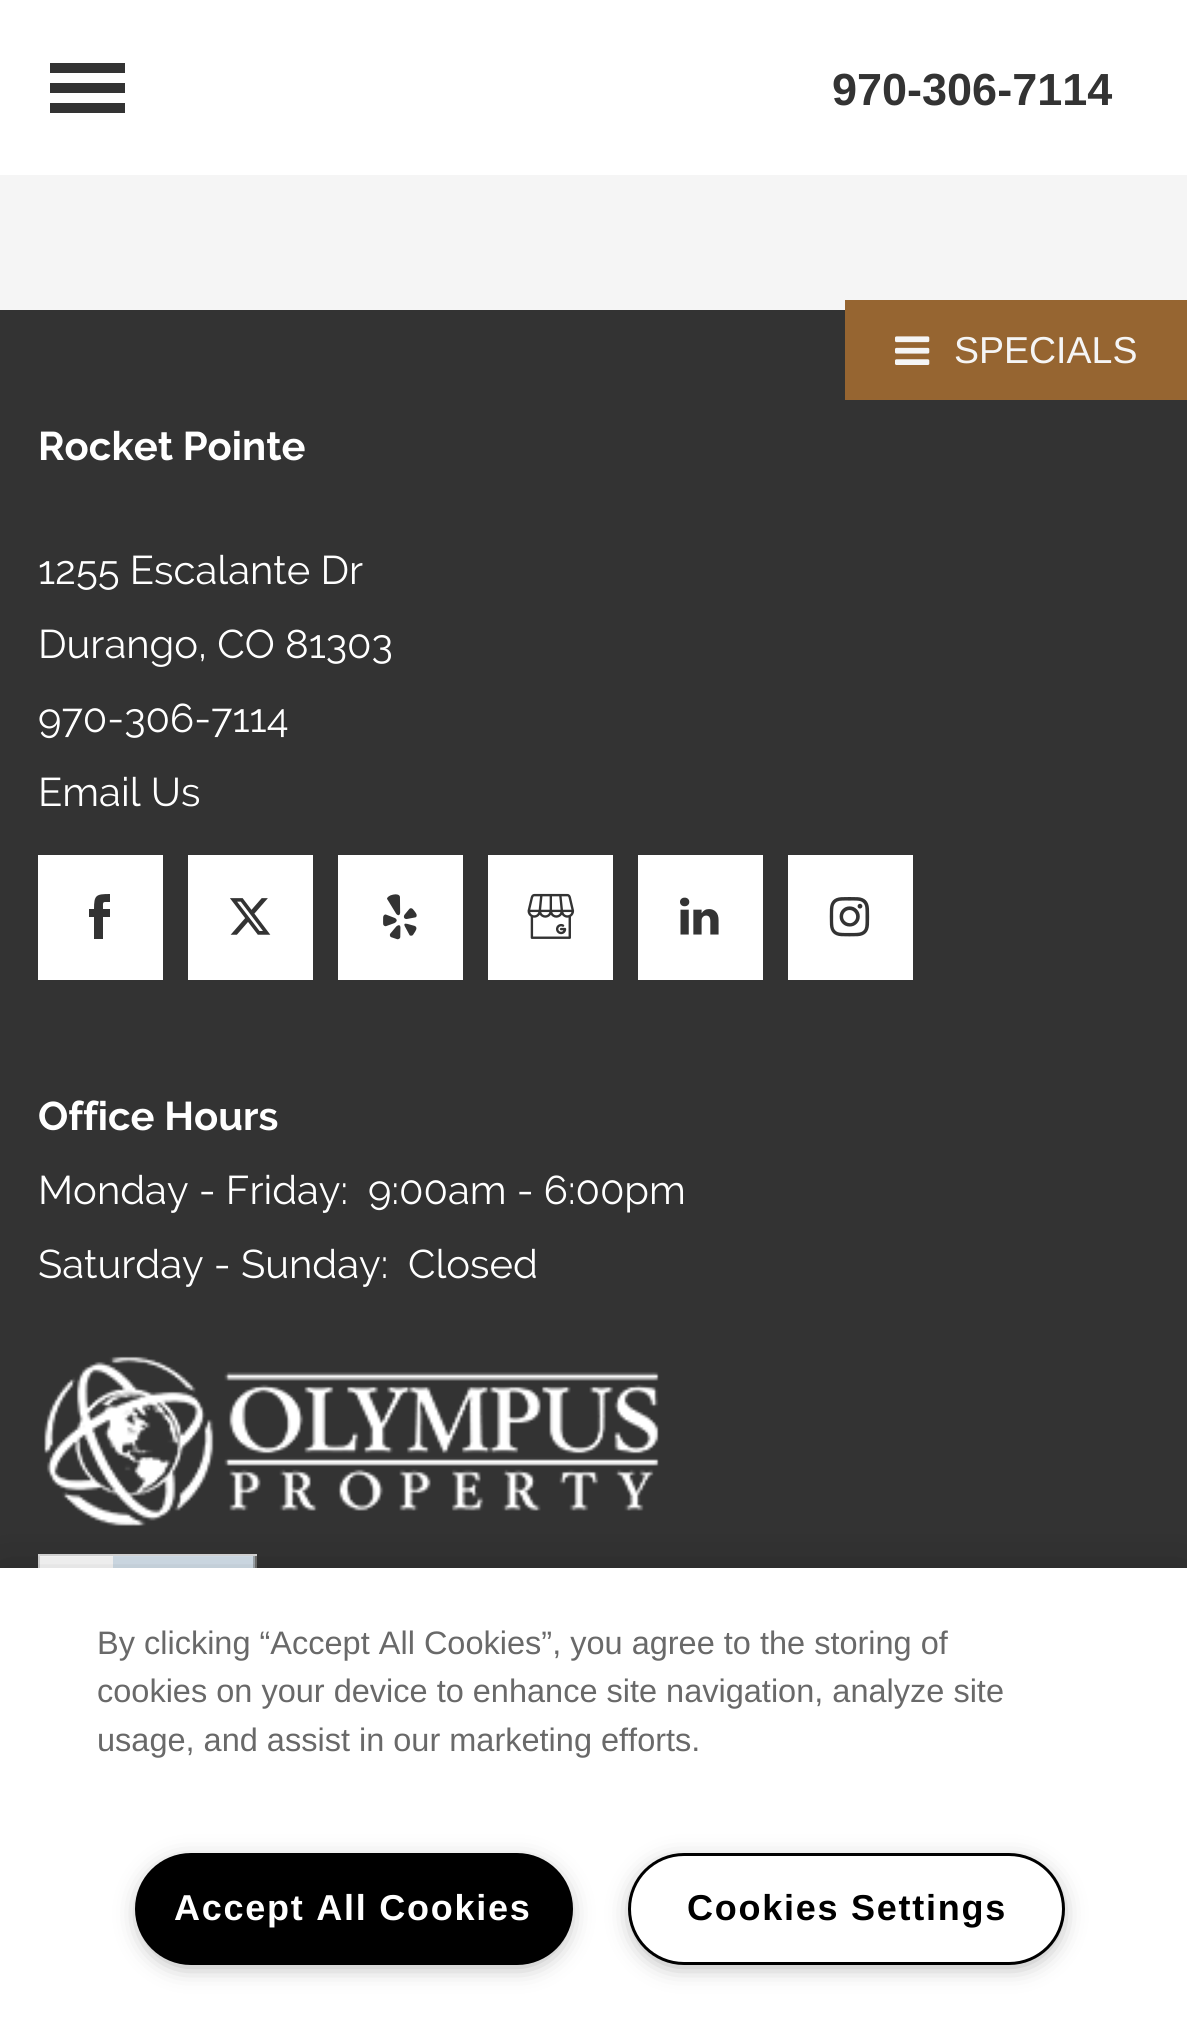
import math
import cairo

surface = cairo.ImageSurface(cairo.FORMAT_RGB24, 1187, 2026)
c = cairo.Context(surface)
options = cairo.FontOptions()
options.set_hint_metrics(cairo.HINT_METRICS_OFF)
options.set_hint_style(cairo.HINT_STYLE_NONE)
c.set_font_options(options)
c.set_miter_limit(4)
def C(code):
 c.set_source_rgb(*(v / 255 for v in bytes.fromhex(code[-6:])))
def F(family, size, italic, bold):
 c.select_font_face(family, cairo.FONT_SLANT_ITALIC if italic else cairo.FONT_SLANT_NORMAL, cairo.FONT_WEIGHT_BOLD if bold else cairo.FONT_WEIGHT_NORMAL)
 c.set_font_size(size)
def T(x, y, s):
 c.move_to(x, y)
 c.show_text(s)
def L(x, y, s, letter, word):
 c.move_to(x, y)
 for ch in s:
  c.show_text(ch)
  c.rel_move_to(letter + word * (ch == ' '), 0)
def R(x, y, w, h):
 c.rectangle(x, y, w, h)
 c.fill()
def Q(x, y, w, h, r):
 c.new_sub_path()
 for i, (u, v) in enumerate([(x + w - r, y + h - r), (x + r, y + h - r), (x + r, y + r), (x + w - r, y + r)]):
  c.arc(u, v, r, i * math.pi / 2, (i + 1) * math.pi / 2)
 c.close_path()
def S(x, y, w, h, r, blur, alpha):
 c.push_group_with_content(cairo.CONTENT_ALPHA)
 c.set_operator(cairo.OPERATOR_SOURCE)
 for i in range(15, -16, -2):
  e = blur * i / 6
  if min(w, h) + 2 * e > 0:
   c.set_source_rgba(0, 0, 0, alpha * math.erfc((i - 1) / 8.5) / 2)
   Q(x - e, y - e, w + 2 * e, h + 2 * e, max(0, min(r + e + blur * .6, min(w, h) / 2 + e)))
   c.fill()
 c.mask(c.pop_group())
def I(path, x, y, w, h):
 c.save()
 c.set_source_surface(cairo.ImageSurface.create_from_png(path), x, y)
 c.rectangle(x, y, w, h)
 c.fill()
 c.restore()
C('f5f5f5')
c.paint()
C('ffffff')
R(0,0,1187,175)
C('333333')
R(50,63,75,10)
R(50,83,75,10)
R(50,103,75,10)
F('Liberation Sans',45,0,1)
T(832,105,'970-306-7114')
R(0,310,1187,1258)
C('966531')
R(845,300,342,100)
I('1.png',895,336,35,29)
F('Liberation Sans',37.5,0,0)
C('f5f5f5')
T(954,363,'SPECIALS')
F('Raleway',40,0,1)
C('ffffff')
T(38,460,'Rocket Pointe')
F('Raleway',40,0,0)
T(38,584,'1255 Escalante Dr')
T(38,658,'Durango, CO 81303')
T(38,732,'970-306-7114')
T(38,806,'Email Us')
R(38,855,125,125)
C('333333')
c.new_path()
c.move_to(110,909)
c.line_to(110,917)
c.line_to(103,917)
c.line_to(103,939)
c.line_to(94,939)
c.line_to(94,917)
c.line_to(89,917)
c.line_to(89,909)
c.line_to(94,909)
c.curve_to(94,895,96,894,110,894)
c.line_to(110,902)
c.curve_to(102,902,103,901,103,909)
c.close_path()
c.fill()
C('ffffff')
R(188,855,125,125)
I('2.png',230,898,41,37)
R(338,855,125,125)
I('3.png',383,894,34,46)
R(488,855,125,125)
I('4.png',527,893,48,46)
R(638,855,125,125)
I('5.png',680,897,39,38)
R(788,855,125,125)
I('6.png',829,897,41,40)
F('Raleway',40,0,1)
T(38,1130,'Office Hours')
F('Raleway',40,0,0)
T(38,1204,'Monday - Friday:')
T(368,1204,'9:00am - 6:00pm')
T(38,1278,'Saturday - Sunday:')
T(408,1278,'Closed')
I('7.png',44,1356,615,170)
I('8.png',38,1554,219,14)
C('000000')
S(0,1568,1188,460,0,22.5,.2)
C('ffffff')
R(0,1568,1187,458)
F('Liberation Sans',32.5,0,0)
C('696969')
T(97,1654,'By clicking “Accept All Cookies”, you agree to the storing of')
T(97,1702,'cookies on your device to enhance site navigation, analyze site')
T(97,1751,'usage, and assist in our marketing efforts.')
C('999999')
S(143,1865,422,98,49,12.5,1)
C('000000')
Q(136.5,1854.5,435,109,54.5)
c.fill_preserve()
c.set_line_width(3)
c.stroke()
F('Liberation Sans',36,0,1)
C('ffffff')
L(174,1920,'Accept All Cookies',1.75,0)
C('999999')
S(635,1865,423,98,49,12.5,1)
C('ffffff')
Q(629.5,1854.5,434,109,54.5)
c.fill_preserve()
C('000000')
c.stroke()
L(687,1920,'Cookies Settings',1.75,0)
surface.write_to_png('o.png')
